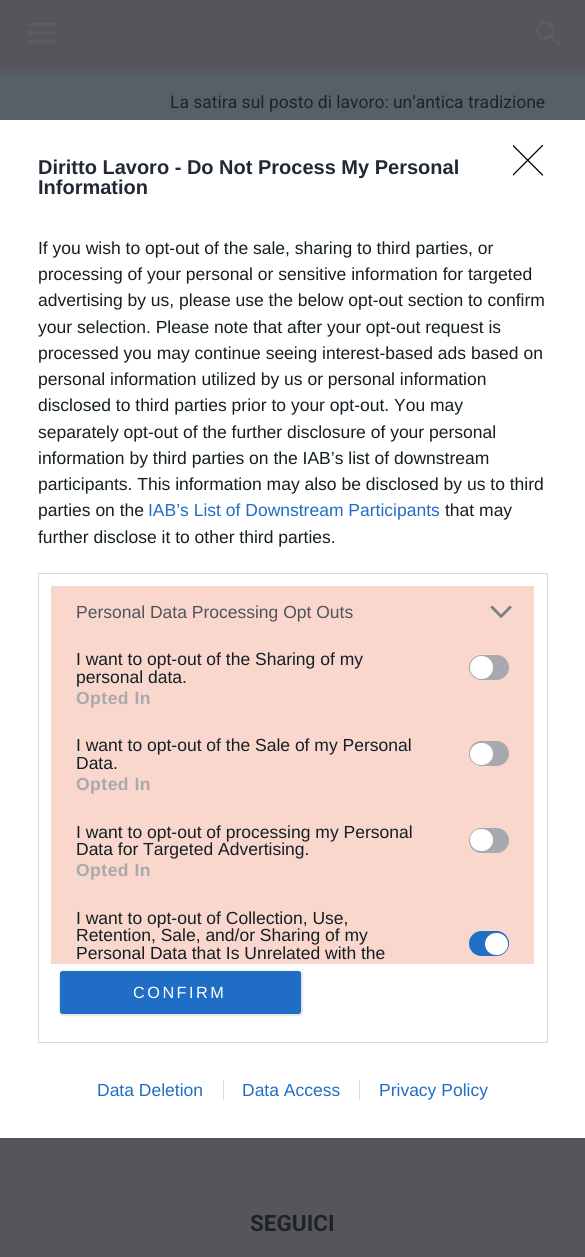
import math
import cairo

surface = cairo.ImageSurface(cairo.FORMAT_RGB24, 585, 1257)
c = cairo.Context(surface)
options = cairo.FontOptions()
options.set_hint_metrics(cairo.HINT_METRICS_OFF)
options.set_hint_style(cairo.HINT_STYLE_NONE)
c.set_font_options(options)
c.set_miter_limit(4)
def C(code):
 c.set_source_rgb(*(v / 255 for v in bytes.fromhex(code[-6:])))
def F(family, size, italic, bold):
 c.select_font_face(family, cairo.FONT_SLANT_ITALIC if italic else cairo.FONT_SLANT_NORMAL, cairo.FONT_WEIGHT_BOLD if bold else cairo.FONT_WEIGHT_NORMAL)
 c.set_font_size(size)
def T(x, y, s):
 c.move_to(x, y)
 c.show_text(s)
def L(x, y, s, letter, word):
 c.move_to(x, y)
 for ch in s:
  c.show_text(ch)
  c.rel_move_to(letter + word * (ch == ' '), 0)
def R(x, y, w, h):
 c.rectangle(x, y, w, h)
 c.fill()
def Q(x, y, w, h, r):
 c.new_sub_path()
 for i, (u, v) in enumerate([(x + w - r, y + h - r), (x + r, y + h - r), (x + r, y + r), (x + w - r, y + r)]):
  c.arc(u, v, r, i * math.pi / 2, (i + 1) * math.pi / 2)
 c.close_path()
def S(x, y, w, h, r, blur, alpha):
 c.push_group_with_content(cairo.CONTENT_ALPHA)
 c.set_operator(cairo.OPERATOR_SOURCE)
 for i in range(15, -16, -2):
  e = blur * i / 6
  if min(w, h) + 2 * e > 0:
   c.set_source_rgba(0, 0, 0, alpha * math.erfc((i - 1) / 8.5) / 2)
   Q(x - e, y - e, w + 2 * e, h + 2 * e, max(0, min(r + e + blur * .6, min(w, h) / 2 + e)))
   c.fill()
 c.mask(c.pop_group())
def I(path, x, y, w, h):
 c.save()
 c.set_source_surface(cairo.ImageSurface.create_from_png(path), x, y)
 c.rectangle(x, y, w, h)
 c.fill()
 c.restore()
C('57555a')
c.paint()
I('1.png',27,23,30,21)
I('2.png',536,21,25,25)
C('595f67')
R(0,68,585,52)
I('3.png',0,68,585,10)
F('Roboto',17.5,0,0)
C('1d232b')
T(170,108,'La satira sul posto di lavoro: un’antica tradizione')
F('Roboto',22.5,0,1)
T(250,1231,'SEGUICI')
C('ffffff')
R(0,120,585,1018)
c.save()
c.rectangle(513,145,31,31)
c.clip()
c.new_path()
c.move_to(513,145.5)
c.line_to(542.5,175)
c.move_to(542.5,145.5)
c.line_to(513,175)
C('000000')
c.set_line_width(1.3)
c.set_line_cap(cairo.LINE_CAP_ROUND)
c.set_line_join(cairo.LINE_JOIN_ROUND)
c.stroke()
c.restore()
F('Liberation Sans',20,0,1)
C('212934')
T(38,174,'Diritto Lavoro - Do Not Process My Personal')
T(38,194,'Information')
F('Liberation Sans',17.5,0,0)
C('141e23')
T(38,254,'If you wish to opt-out of the sale, sharing to third parties, or')
T(38,280,'processing of your personal or sensitive information for targeted')
T(38,306,'advertising by us, please use the below opt-out section to confirm')
T(38,333,'your selection. Please note that after your opt-out request is')
T(38,359,'processed you may continue seeing interest-based ads based on')
T(38,385,'personal information utilized by us or personal information')
T(38,411,'disclosed to third parties prior to your opt-out. You may')
T(38,438,'separately opt-out of the further disclosure of your personal')
T(38,464,'information by third parties on the IAB’s list of downstream')
T(38,490,'participants. This information may also be disclosed by us to third')
T(38,516,'parties on the')
C('206dc5')
T(148,516,'IAB’s List of Downstream Participants')
C('141e23')
T(445,516,'that may')
T(38,543,'further disclose it to other third parties.')
c.rectangle(38.5,573.5,509,469)
C('d8d8d8')
c.set_line_width(1)
c.stroke()
C('f9d7cc')
R(51,586,483,378)
C('4d545d')
T(76,618,'Personal Data Processing Opt Outs')
I('4.png',490,605,22,13)
C('141e23')
T(76,665,'I want to opt-out of the Sharing of my')
T(76,683,'personal data.')
C('a6a9ae')
Q(469.5,655.5,39,24,12)
c.fill_preserve()
c.stroke()
C('ffffff')
c.arc(481.5,667.5,11.5,0,2 * math.pi)
c.fill()
F('Liberation Sans',17.5,0,1)
C('a6a9ae')
L(76,704,'Opted In',.5,0)
F('Liberation Sans',17.5,0,0)
C('141e23')
T(76,751,'I want to opt-out of the Sale of my Personal')
T(76,769,'Data.')
C('a6a9ae')
Q(469.5,741.5,39,24,12)
c.fill_preserve()
c.stroke()
C('ffffff')
Q(470,743,23,22,11)
c.fill()
F('Liberation Sans',17.5,0,1)
C('a6a9ae')
L(76,790,'Opted In',.5,0)
F('Liberation Sans',17.5,0,0)
C('141e23')
T(76,838,'I want to opt-out of processing my Personal')
T(76,855,'Data for Targeted Advertising.')
C('a6a9ae')
Q(469.5,828.5,39,24,12)
c.fill_preserve()
c.stroke()
C('ffffff')
Q(470,829,23,22,11)
c.fill()
F('Liberation Sans',17.5,0,1)
C('a6a9ae')
L(76,876,'Opted In',.5,0)
F('Liberation Sans',17.5,0,0)
C('141e23')
T(76,924,'I want to opt-out of Collection, Use,')
T(76,941,'Retention, Sale, and/or Sharing of my')
T(76,959,'Personal Data that Is Unrelated with the')
C('206dc5')
Q(469.5,931.5,39,24,12)
c.fill_preserve()
c.stroke()
C('ffffff')
Q(485,933,23,22,11)
c.fill()
C('000000')
S(59,971,244,45,4,.5,.1)
C('206dc5')
Q(60,971,241,43,2.5)
c.fill()
F('Liberation Sans',16.25,0,0)
C('ffffff')
L(133,998,'CONFIRM',2.5,0)
F('Liberation Sans',17.5,0,0)
C('206dc5')
T(97,1096,'Data Deletion')
T(242,1096,'Data Access')
C('d8d8d8')
R(223,1080,1,20)
C('206dc5')
T(379,1096,'Privacy Policy')
C('d8d8d8')
R(359,1080,1,20)
surface.write_to_png('o.png')
